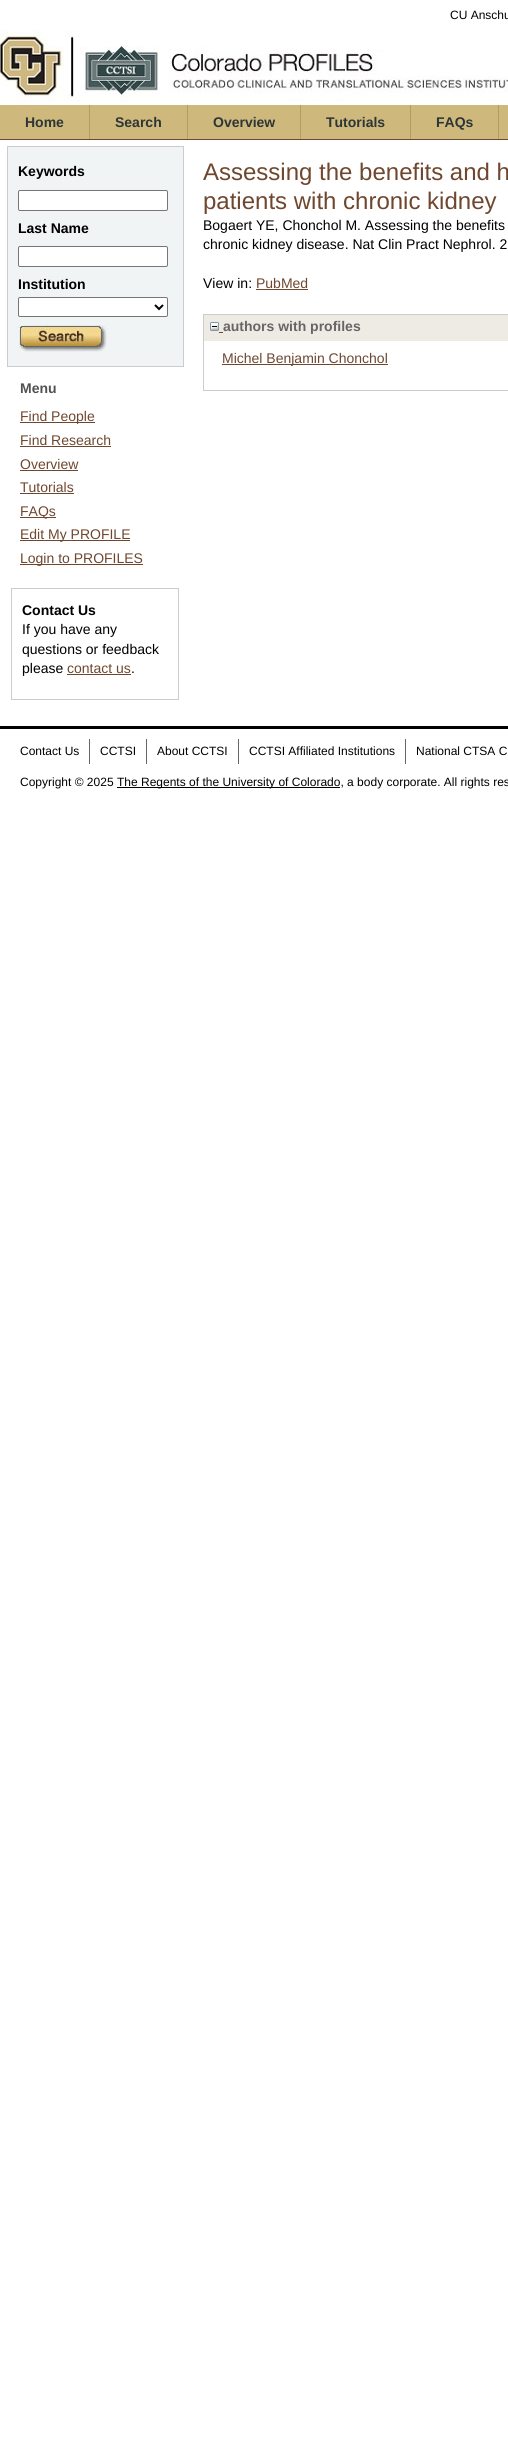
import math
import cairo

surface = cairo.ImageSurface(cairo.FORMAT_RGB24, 508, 2447)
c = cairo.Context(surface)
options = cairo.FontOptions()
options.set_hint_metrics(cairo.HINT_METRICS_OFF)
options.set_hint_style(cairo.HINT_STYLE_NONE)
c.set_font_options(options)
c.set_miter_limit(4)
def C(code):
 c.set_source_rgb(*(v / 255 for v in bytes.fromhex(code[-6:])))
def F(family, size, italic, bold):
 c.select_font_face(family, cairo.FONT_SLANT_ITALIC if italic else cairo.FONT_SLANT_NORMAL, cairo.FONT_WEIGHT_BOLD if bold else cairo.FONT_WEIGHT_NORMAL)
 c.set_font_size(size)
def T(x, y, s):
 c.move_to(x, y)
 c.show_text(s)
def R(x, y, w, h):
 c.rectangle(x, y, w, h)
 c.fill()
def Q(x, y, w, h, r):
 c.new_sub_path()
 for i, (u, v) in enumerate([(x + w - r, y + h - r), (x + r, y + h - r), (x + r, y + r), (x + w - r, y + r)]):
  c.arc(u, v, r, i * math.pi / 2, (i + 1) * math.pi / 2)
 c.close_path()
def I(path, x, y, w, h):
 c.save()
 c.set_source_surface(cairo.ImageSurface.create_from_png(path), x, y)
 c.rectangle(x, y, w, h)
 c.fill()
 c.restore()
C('ffffff')
c.paint()
F('Liberation Sans',12,0,0)
C('000000')
T(450,19,'CU Anschu')
I('1.png',0,30,508,75)
C('cfb87c')
R(0,105,508,34)
C('6f472e')
R(0,139,508,1)
C('b39c68')
R(89,105,1,34)
F('Liberation Sans',14,0,1)
C('2d3636')
T(25,127,'Home')
C('b39c68')
R(187,105,1,34)
C('2d3636')
T(115,127,'Search')
C('b39c68')
R(300,105,1,34)
C('2d3636')
T(213,127,'Overview')
C('b39c68')
R(410,105,1,34)
C('2d3636')
T(326,127,'Tutorials')
C('b39c68')
R(498,105,1,34)
C('2d3636')
T(436,127,'FAQs')
C('f0f4f4')
c.rectangle(7.5,146.5,176,220)
c.fill_preserve()
C('cccccc')
c.set_line_width(1)
c.stroke()
C('000000')
T(18,176,'Keywords')
C('ffffff')
Q(18.5,190.5,149,20,1.5)
c.fill_preserve()
C('767676')
c.stroke()
C('000000')
T(18,233,'Last Name')
C('ffffff')
Q(18.5,246.5,149,20,1.5)
c.fill_preserve()
C('767676')
c.stroke()
C('000000')
T(18,289,'Institution')
C('ffffff')
Q(18.5,297.5,149,19,1.5)
c.fill_preserve()
C('767676')
c.stroke()
c.new_path()
c.move_to(155,305)
c.line_to(159,309)
c.line_to(163,305)
C('000000')
c.set_line_width(2)
c.stroke()
I('2.png',18,325,89,27)
C('525252')
T(20,393,'Menu')
C('6f472e')
R(20,422,75,1)
F('Liberation Sans',14,0,0)
T(20,421,'Find People')
T(20,445,'Find Research')
R(20,446,91,1)
T(20,469,'Overview')
R(20,470,58,1)
T(20,492,'Tutorials')
R(20,493,54,1)
R(20,517,36,1)
T(20,516,'FAQs')
R(20,540,110,1)
T(20,539,'Edit My PROFILE')
R(20,564,123,1)
T(20,563,'Login to PROFILES')
c.rectangle(11.5,588.5,167,111)
C('cccccc')
c.set_line_width(1)
c.stroke()
F('Liberation Sans',14,0,1)
C('000000')
T(22,615,'Contact Us')
F('Liberation Sans',14,0,0)
T(22,634,'If you have any')
T(22,654,'questions or feedback')
T(22,673,'please')
C('6f472e')
T(67,673,'contact us')
R(67,674,64,1)
C('000000')
T(131,673,'.')
F('Liberation Sans',24,0,0)
C('6f472e')
T(203,180,'Assessing the benefits and h')
T(203,209,'patients with chronic kidney')
F('Liberation Sans',14,0,0)
C('000000')
T(203,230,'Bogaert YE, Chonchol M. Assessing the benefits')
T(203,249,'chronic kidney disease. Nat Clin Pract Nephrol. 2')
T(203,288,'View in:')
C('6f472e')
T(256,288,'PubMed')
R(256,289,52,1)
c.rectangle(203.5,314.5,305,76)
C('cccccc')
c.stroke()
C('eeebe5')
R(204,315,304,26)
I('3.png',210,322,9,9)
F('Liberation Sans',14,0,1)
C('666666')
T(223,331,'authors with profiles')
C('6f472e')
R(219,332,4,1)
R(222,364,166,1)
F('Liberation Sans',14,0,0)
T(222,363,'Michel Benjamin Chonchol')
C('000000')
R(0,726,508,3)
F('Liberation Sans',12,0,0)
T(20,755,'Contact Us')
C('666666')
R(89,739,1,25)
C('000000')
T(100,755,'CCTSI')
C('666666')
R(146,739,1,25)
C('000000')
T(157,755,'About CCTSI')
C('666666')
R(238,739,1,25)
C('000000')
T(249,755,'CCTSI Affiliated Institutions')
C('666666')
R(405,739,1,25)
C('000000')
T(416,755,'National CTSA C')
T(20,786,'Copyright © 2025')
R(117,787,223,1)
T(117,786,'The Regents of the University of Colorado, a body corporate. All rights res')
surface.write_to_png('o.png')
